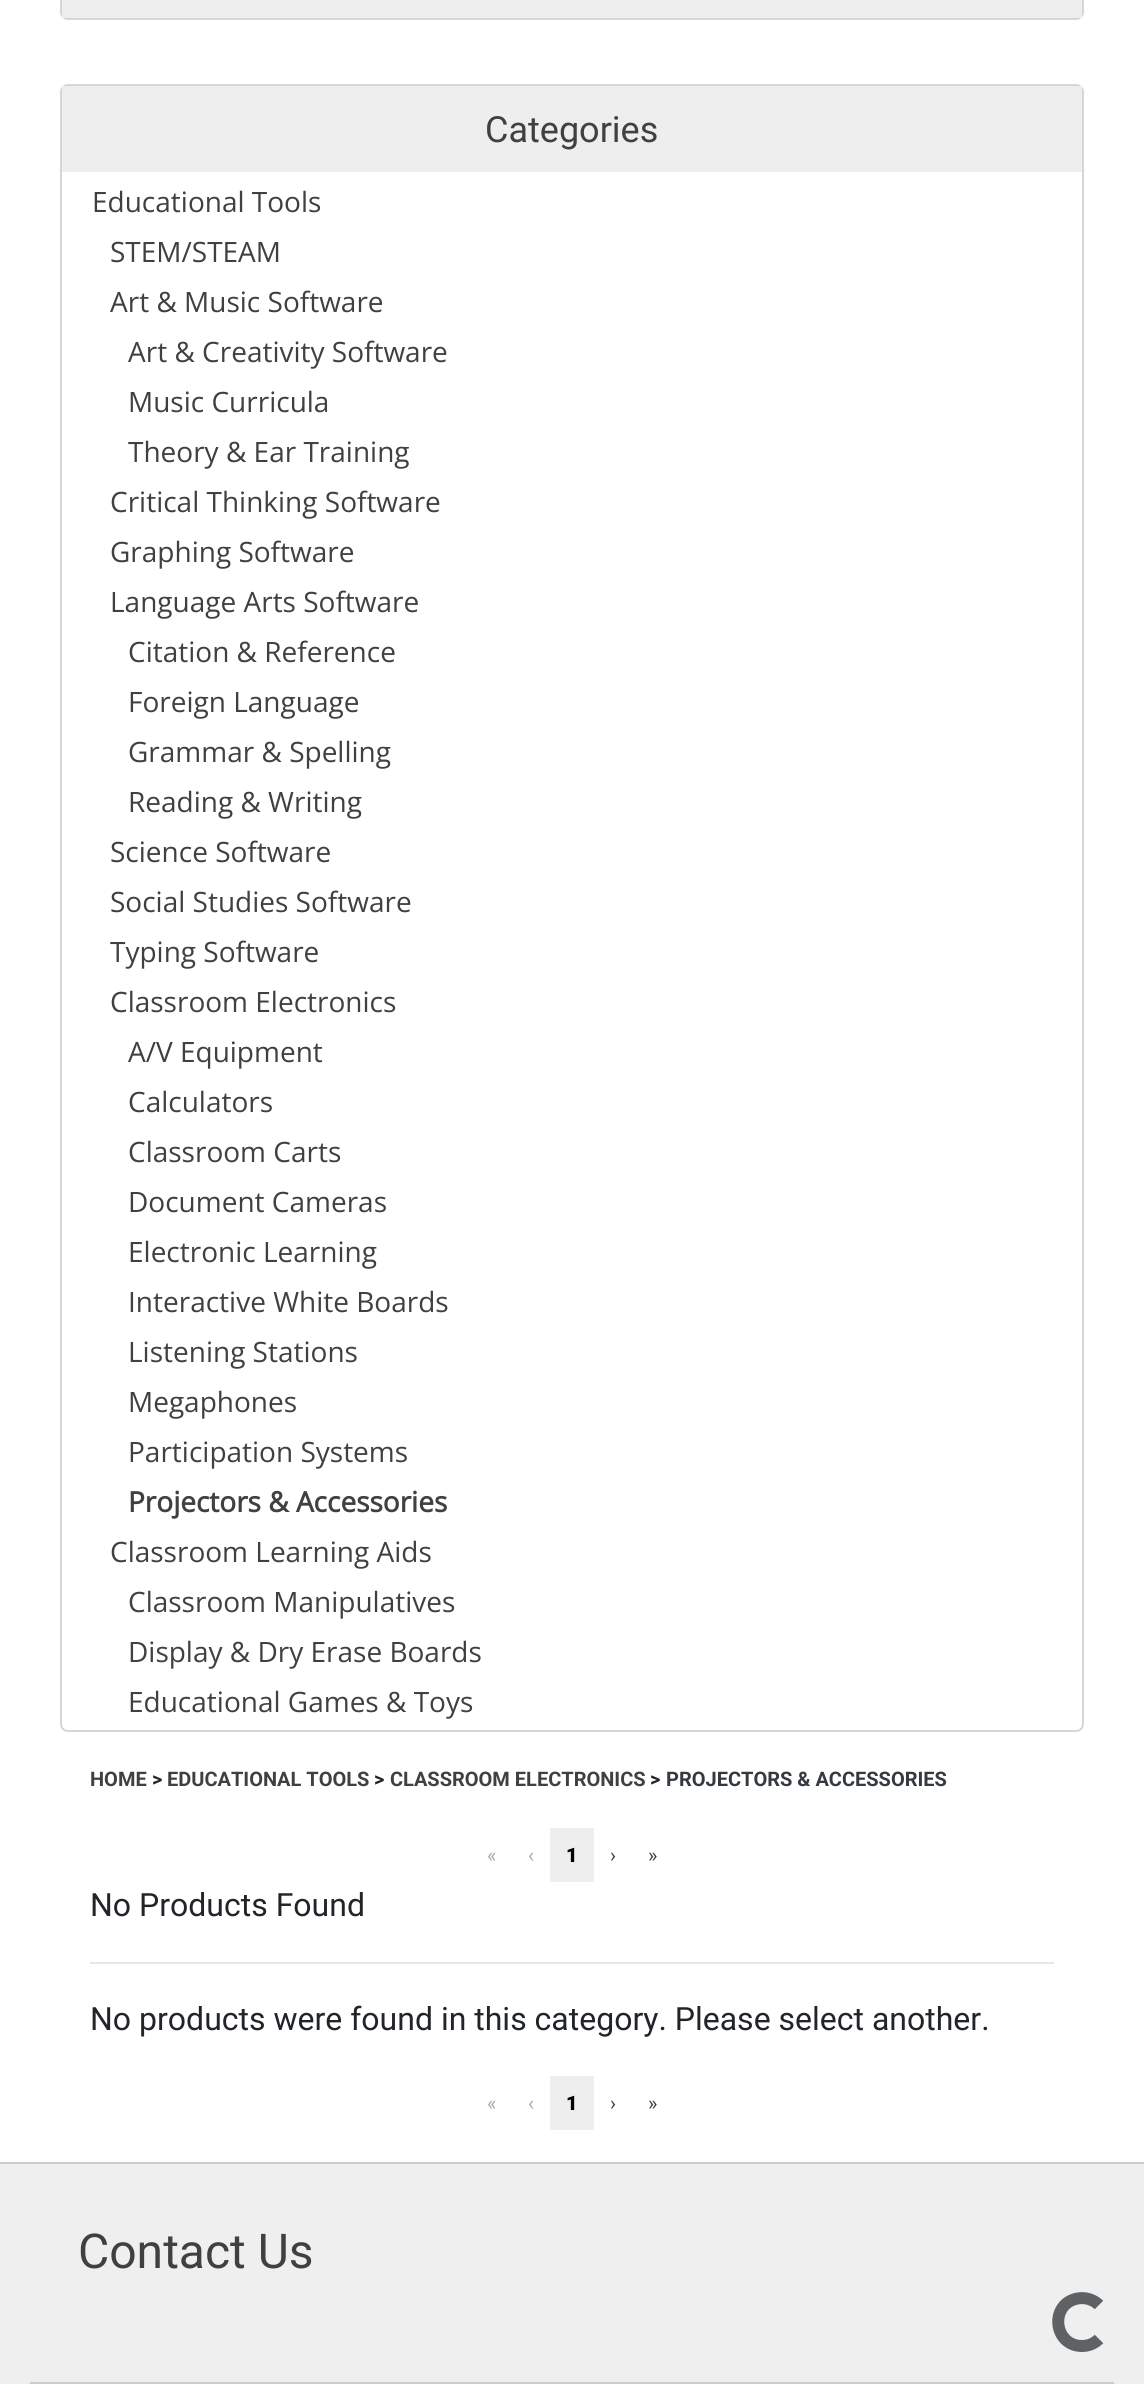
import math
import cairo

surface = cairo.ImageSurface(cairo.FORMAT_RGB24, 1144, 2384)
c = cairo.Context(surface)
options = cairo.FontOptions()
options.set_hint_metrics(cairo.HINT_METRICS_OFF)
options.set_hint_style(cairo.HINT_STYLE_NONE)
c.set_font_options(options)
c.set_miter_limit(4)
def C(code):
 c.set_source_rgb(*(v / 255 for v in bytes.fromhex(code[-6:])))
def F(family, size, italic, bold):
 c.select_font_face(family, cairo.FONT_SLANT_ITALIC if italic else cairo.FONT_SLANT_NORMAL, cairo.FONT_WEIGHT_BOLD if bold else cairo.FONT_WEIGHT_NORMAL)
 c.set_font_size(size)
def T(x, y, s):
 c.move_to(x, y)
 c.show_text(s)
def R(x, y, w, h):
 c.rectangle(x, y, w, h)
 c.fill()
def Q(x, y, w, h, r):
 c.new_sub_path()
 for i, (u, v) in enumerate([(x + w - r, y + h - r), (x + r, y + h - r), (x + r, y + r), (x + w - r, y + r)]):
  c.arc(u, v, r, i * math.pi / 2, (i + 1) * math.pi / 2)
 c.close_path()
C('ffffff')
c.paint()
Q(61,-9,1022,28,7)
C('d6d6d6')
c.stroke()
C('eeeeee')
R(62,0,1020,18)
Q(61,85,1022,1646,7)
C('d6d6d6')
c.stroke()
C('eeeeee')
R(62,86,1020,86)
F('Roboto',36,0,0)
C('404040')
T(485,142,'Categories')
F('Open Sans',28,0,0)
T(92,212,'Educational Tools')
T(110,262,'STEM/STEAM')
T(110,312,'Art & Music Software')
T(128,362,'Art & Creativity Software')
T(128,412,'Music Curricula')
T(128,462,'Theory & Ear Training')
T(110,512,'Critical Thinking Software')
T(110,562,'Graphing Software')
T(110,612,'Language Arts Software')
T(128,662,'Citation & Reference')
T(128,712,'Foreign Language')
T(128,762,'Grammar & Spelling')
T(128,812,'Reading & Writing')
T(110,862,'Science Software')
T(110,912,'Social Studies Software')
T(110,962,'Typing Software')
T(110,1012,'Classroom Electronics')
T(128,1062,'A/V Equipment')
T(128,1112,'Calculators')
T(128,1162,'Classroom Carts')
T(128,1212,'Document Cameras')
T(128,1262,'Electronic Learning')
T(128,1312,'Interactive White Boards')
T(128,1362,'Listening Stations')
T(128,1412,'Megaphones')
T(128,1462,'Participation Systems')
F('Open Sans',28,0,1)
T(128,1512,'Projectors & Accessories')
F('Open Sans',28,0,0)
T(110,1562,'Classroom Learning Aids')
T(128,1612,'Classroom Manipulatives')
T(128,1662,'Display & Dry Erase Boards')
T(128,1712,'Educational Games & Toys')
F('Roboto',20,0,1)
T(90,1786,'HOME')
C('212529')
T(152,1786,'>')
C('404040')
T(167,1786,'EDUCATIONAL TOOLS')
C('212529')
T(374,1786,'>')
C('404040')
T(390,1786,'CLASSROOM ELECTRONICS')
C('212529')
T(650,1786,'>')
C('343a40')
T(666,1786,'PROJECTORS & ACCESSORIES')
F('Roboto',20,0,0)
C('a9a9a9')
T(487,1862,'«')
T(528,1862,'‹')
C('eeeeee')
R(550,1828,44,54)
F('Roboto Black',20,0,0)
C('000000')
T(566,1862,'1')
F('Roboto',20,0,0)
C('404040')
T(610,1862,'›')
T(648,1862,'»')
F('Roboto',32,0,0)
C('212529')
T(90,1916,'No Products Found')
C('e6e6e6')
R(90,1962,964,2)
C('212529')
T(90,2030,'No products were found in this category. Please select another.')
F('Roboto',20,0,0)
C('a9a9a9')
T(487,2110,'«')
T(528,2110,'‹')
C('eeeeee')
R(550,2076,44,54)
F('Roboto Black',20,0,0)
C('000000')
T(566,2110,'1')
F('Roboto',20,0,0)
C('404040')
T(610,2110,'›')
T(648,2110,'»')
C('efefef')
R(0,2164,1144,220)
C('cccccc')
R(0,2162,1144,2)
F('Roboto',48,0,0)
C('404040')
T(78,2268,'Contact Us')
C('cccccc')
R(30,2382,1084,2)
c.new_path()
c.move_to(1099,2339)
c.curve_to(1094.5,2343.5,1088.5,2346,1082,2346)
c.curve_to(1053.5,2346,1049,2304,1077.5,2298.5)
c.curve_to(1085,2297,1093.5,2299.5,1099,2305)
C('5f6264')
c.set_line_width(12)
c.stroke()
surface.write_to_png('o.png')
